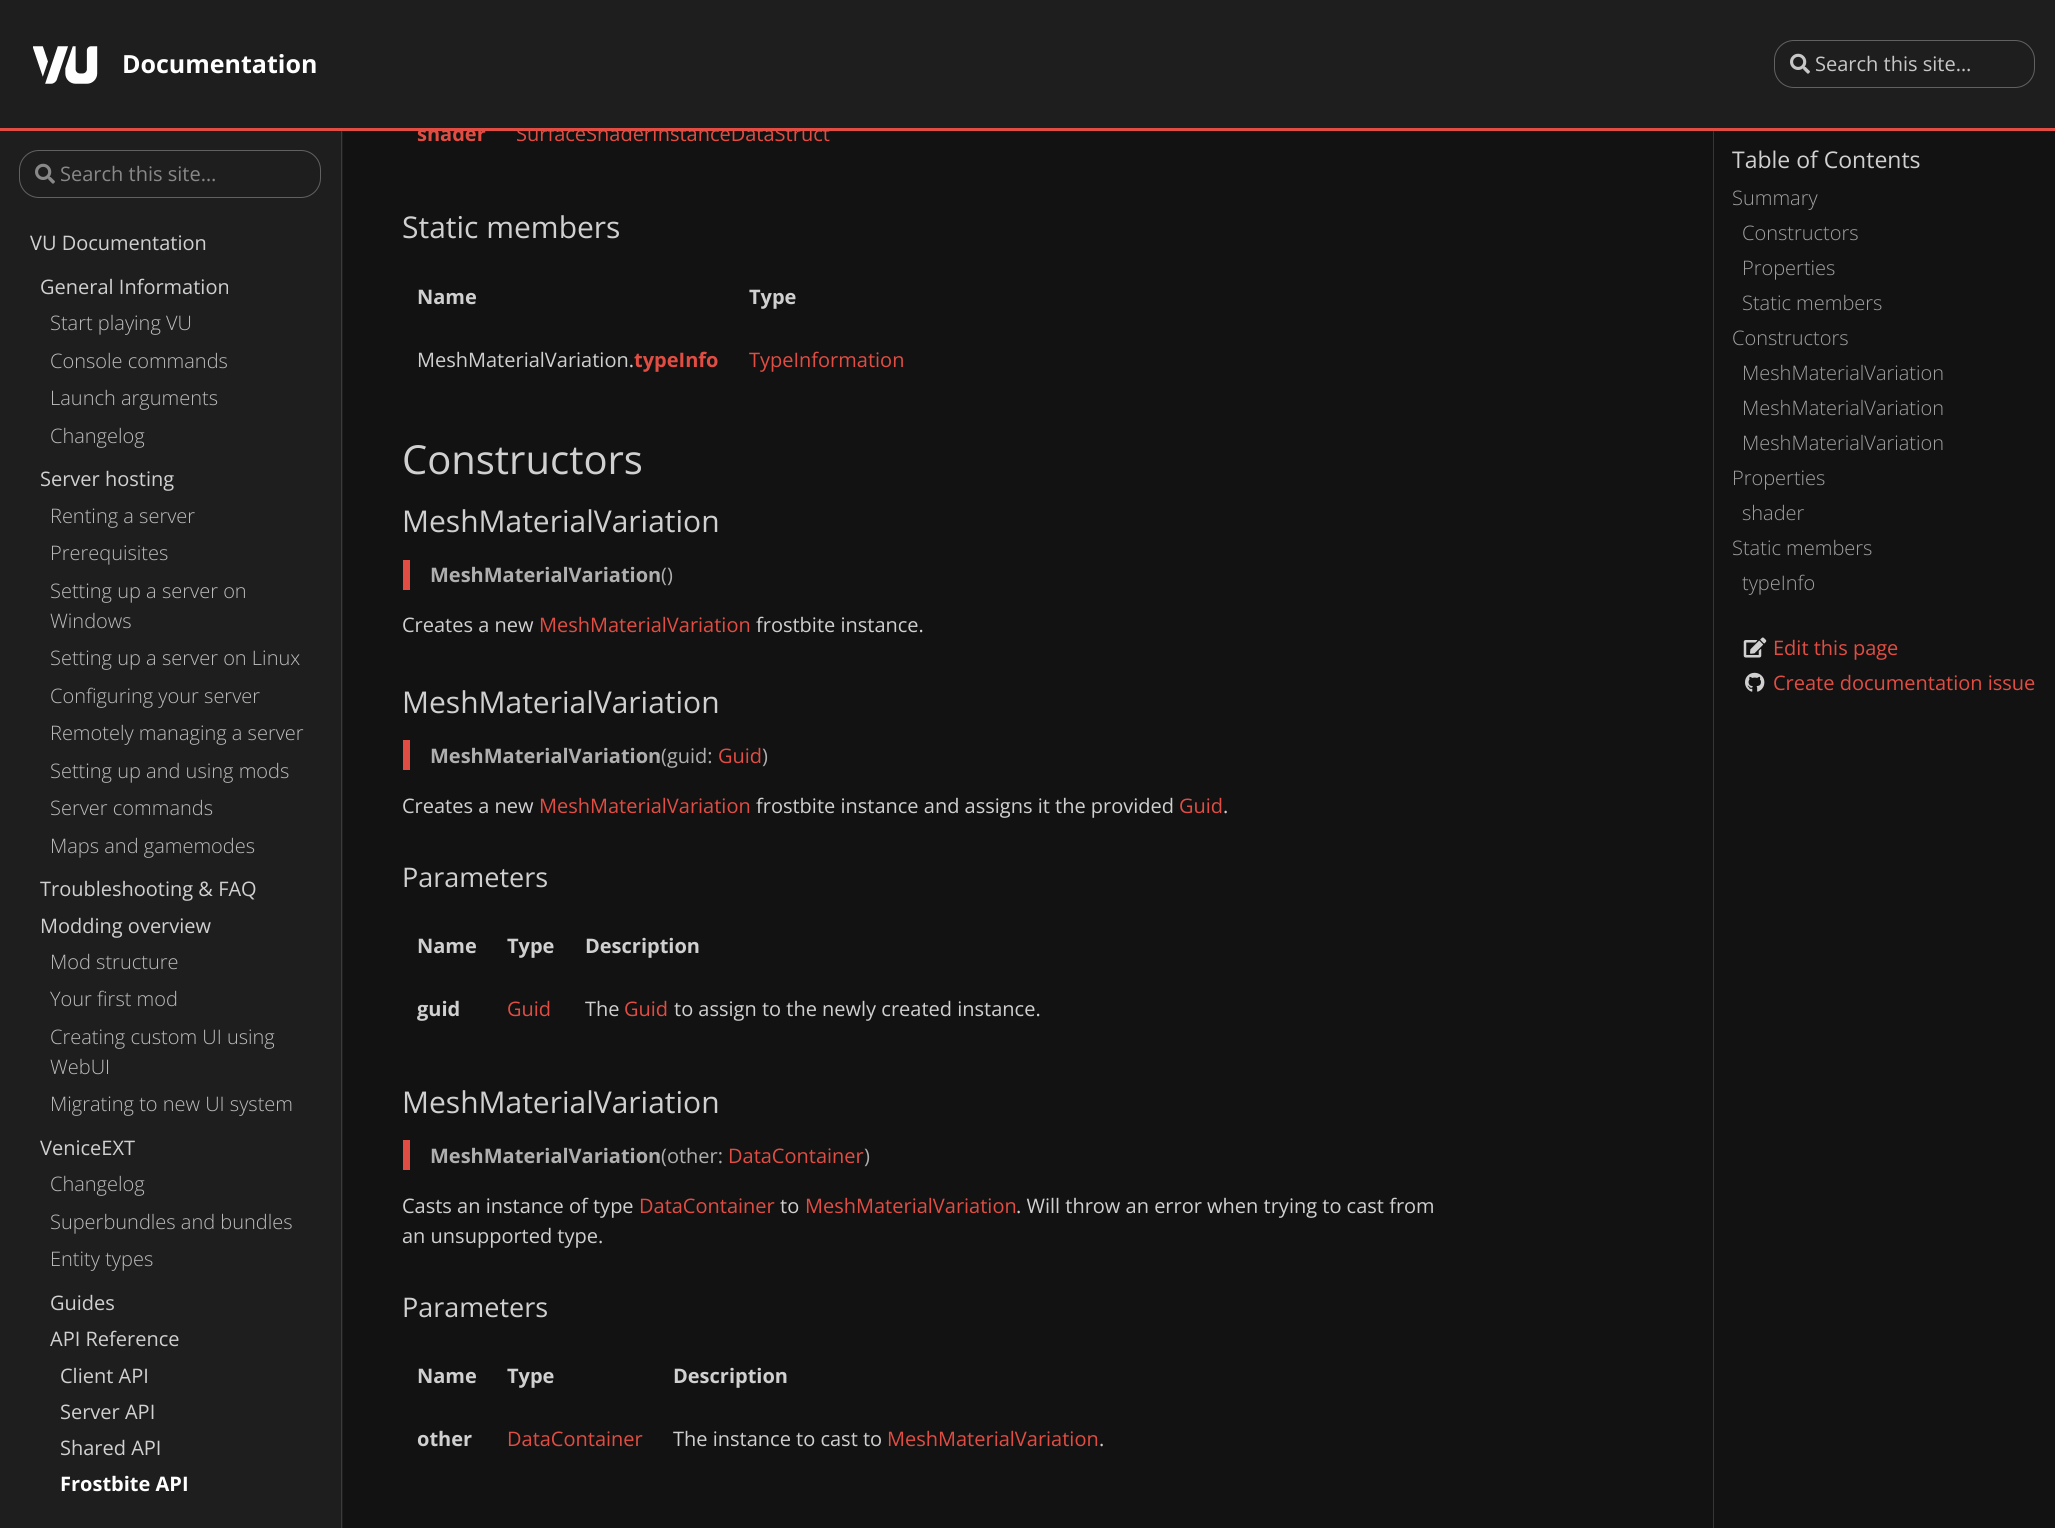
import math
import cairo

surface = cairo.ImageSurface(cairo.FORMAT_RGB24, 2055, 1528)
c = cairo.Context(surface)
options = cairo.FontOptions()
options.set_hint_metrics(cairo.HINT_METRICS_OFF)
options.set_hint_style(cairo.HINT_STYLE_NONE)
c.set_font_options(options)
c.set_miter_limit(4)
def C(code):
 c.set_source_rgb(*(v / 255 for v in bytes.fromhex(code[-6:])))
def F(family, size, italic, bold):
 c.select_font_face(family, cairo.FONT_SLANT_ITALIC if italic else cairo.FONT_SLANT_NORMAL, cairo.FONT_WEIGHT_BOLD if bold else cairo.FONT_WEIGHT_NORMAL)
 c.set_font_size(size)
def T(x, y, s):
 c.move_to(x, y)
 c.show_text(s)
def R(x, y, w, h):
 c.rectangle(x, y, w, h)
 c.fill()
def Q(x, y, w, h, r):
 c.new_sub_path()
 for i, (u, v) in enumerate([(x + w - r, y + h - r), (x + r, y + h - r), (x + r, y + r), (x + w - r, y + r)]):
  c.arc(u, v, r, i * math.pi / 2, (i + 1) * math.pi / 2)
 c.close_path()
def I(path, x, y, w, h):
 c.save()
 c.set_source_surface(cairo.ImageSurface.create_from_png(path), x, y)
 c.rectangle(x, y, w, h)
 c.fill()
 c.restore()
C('121212')
c.paint()
F('Open Sans',20,0,1)
C('e14d43')
T(417,141,'shader')
F('Open Sans',20,0,0)
T(516,141,'SurfaceShaderInstanceDataStruct')
C('1e1e1e')
R(0,0,2055,128)
C('363636')
R(1713,130,1,1398)
C('e14d43')
R(0,128,2055,3)
I('1.png',33,46,65,38)
F('Open Sans',25,0,1)
C('ffffff')
T(122,73,'Documentation')
Q(1774.5,40.5,260,47,19.5)
C('616161')
c.set_line_width(1)
c.stroke()
I('2.png',1790,53,20,21)
F('Open Sans',20,0,0)
C('c7c7c7')
T(1815,71,'Search this site…')
C('1e1e1e')
R(0,131,343,1397)
C('3b3b3c')
R(341,131,1,1397)
Q(19.5,150.5,301,47,19.5)
C('616161')
c.stroke()
I('3.png',35,163,20,21)
C('888888')
T(60,181,'Search this site…')
C('d0d0d0')
T(30,250,'VU Documentation')
T(40,294,'General Information')
F('Open Sans Light',20,0,0)
C('bcbcbc')
T(50,330,'Start playing VU')
T(50,368,'Console commands')
T(50,405,'Launch arguments')
T(50,443,'Changelog')
F('Open Sans',20,0,0)
C('d0d0d0')
T(40,486,'Server hosting')
F('Open Sans Light',20,0,0)
C('bcbcbc')
T(50,523,'Renting a server')
T(50,560,'Prerequisites')
T(50,598,'Setting up a server on')
T(50,628,'Windows')
T(50,665,'Setting up a server on Linux')
T(50,703,'Configuring your server')
T(50,740,'Remotely managing a server')
T(50,778,'Setting up and using mods')
T(50,815,'Server commands')
T(50,853,'Maps and gamemodes')
F('Open Sans',20,0,0)
C('d0d0d0')
T(40,896,'Troubleshooting & FAQ')
T(40,933,'Modding overview')
F('Open Sans Light',20,0,0)
C('bcbcbc')
T(50,969,'Mod structure')
T(50,1006,'Your first mod')
T(50,1044,'Creating custom UI using')
T(50,1074,'WebUI')
T(50,1111,'Migrating to new UI system')
F('Open Sans',20,0,0)
C('d0d0d0')
T(40,1155,'VeniceEXT')
F('Open Sans Light',20,0,0)
C('bcbcbc')
T(50,1191,'Changelog')
T(50,1229,'Superbundles and bundles')
T(50,1266,'Entity types')
F('Open Sans',20,0,0)
C('d0d0d0')
T(50,1310,'Guides')
T(50,1346,'API Reference')
T(60,1383,'Client API')
T(60,1419,'Server API')
T(60,1455,'Shared API')
F('Open Sans',20,0,1)
C('ffffff')
T(60,1491,'Frostbite API')
F('Open Sans',30,0,0)
C('d0d0d0')
T(402,238,'Static members')
F('Open Sans',20,0,1)
T(417,304,'Name')
T(749,304,'Type')
F('Open Sans',20,0,0)
T(417,367,'MeshMaterialVariation.')
F('Open Sans',20,0,1)
C('e14d43')
T(634,367,'typeInfo')
F('Open Sans',20,0,0)
T(749,367,'TypeInformation')
F('Open Sans',40,0,0)
C('d0d0d0')
T(402,474,'Constructors')
F('Open Sans',30,0,0)
T(402,532,'MeshMaterialVariation')
C('e14d43')
R(403,560,7,30)
F('Open Sans',20,0,1)
C('afafaf')
T(430,582,'MeshMaterialVariation')
F('Open Sans',20,0,0)
T(661,582,'()')
C('d0d0d0')
T(402,632,'Creates a new')
C('e14d43')
T(539,632,'MeshMaterialVariation')
C('d0d0d0')
T(756,632,'frostbite instance.')
F('Open Sans',30,0,0)
T(402,713,'MeshMaterialVariation')
C('e14d43')
R(403,740,7,30)
F('Open Sans',20,0,1)
C('afafaf')
T(430,763,'MeshMaterialVariation')
F('Open Sans',20,0,0)
T(661,763,'(guid:')
C('e14d43')
T(718,763,'Guid')
C('afafaf')
T(762,763,')')
C('d0d0d0')
T(402,813,'Creates a new')
C('e14d43')
T(539,813,'MeshMaterialVariation')
C('d0d0d0')
T(756,813,'frostbite instance and assigns it the provided')
C('e14d43')
T(1179,813,'Guid')
C('d0d0d0')
T(1223,813,'.')
F('Open Sans',27,0,0)
T(402,887,'Parameters')
F('Open Sans',20,0,1)
T(417,953,'Name')
T(507,953,'Type')
T(585,953,'Description')
T(417,1016,'guid')
F('Open Sans',20,0,0)
C('e14d43')
T(507,1016,'Guid')
C('d0d0d0')
T(585,1016,'The')
C('e14d43')
T(624,1016,'Guid')
C('d0d0d0')
T(674,1016,'to assign to the newly created instance.')
F('Open Sans',30,0,0)
T(402,1113,'MeshMaterialVariation')
C('e14d43')
R(403,1140,7,30)
F('Open Sans',20,0,1)
C('afafaf')
T(430,1163,'MeshMaterialVariation')
F('Open Sans',20,0,0)
T(661,1163,'(other:')
C('e14d43')
T(728,1163,'DataContainer')
C('afafaf')
T(864,1163,')')
C('d0d0d0')
T(402,1213,'Casts an instance of type')
C('e14d43')
T(639,1213,'DataContainer')
C('d0d0d0')
T(780,1213,'to')
C('e14d43')
T(805,1213,'MeshMaterialVariation')
C('d0d0d0')
T(1016,1213,'. Will throw an error when trying to cast from')
T(402,1243,'an unsupported type.')
F('Open Sans',27,0,0)
T(402,1317,'Parameters')
F('Open Sans',20,0,1)
T(417,1383,'Name')
T(507,1383,'Type')
T(673,1383,'Description')
T(417,1446,'other')
F('Open Sans',20,0,0)
C('e14d43')
T(507,1446,'DataContainer')
C('d0d0d0')
T(673,1446,'The instance to cast to')
C('e14d43')
T(887,1446,'MeshMaterialVariation')
C('d0d0d0')
T(1099,1446,'.')
F('Open Sans',23,0,0)
T(1732,168,'Table of Contents')
F('Open Sans Light',20,0,0)
C('a0a0a0')
T(1732,205,'Summary')
T(1742,240,'Constructors')
T(1742,275,'Properties')
T(1742,310,'Static members')
T(1732,345,'Constructors')
T(1742,380,'MeshMaterialVariation')
T(1742,415,'MeshMaterialVariation')
T(1742,450,'MeshMaterialVariation')
T(1732,485,'Properties')
T(1742,520,'shader')
T(1732,555,'Static members')
T(1742,590,'typeInfo')
I('4.png',1743,637,24,21)
F('Open Sans',20,0,0)
C('e14d43')
T(1773,655,'Edit this page')
I('5.png',1745,672,20,20)
T(1773,690,'Create documentation issue')
surface.write_to_png('o.png')
